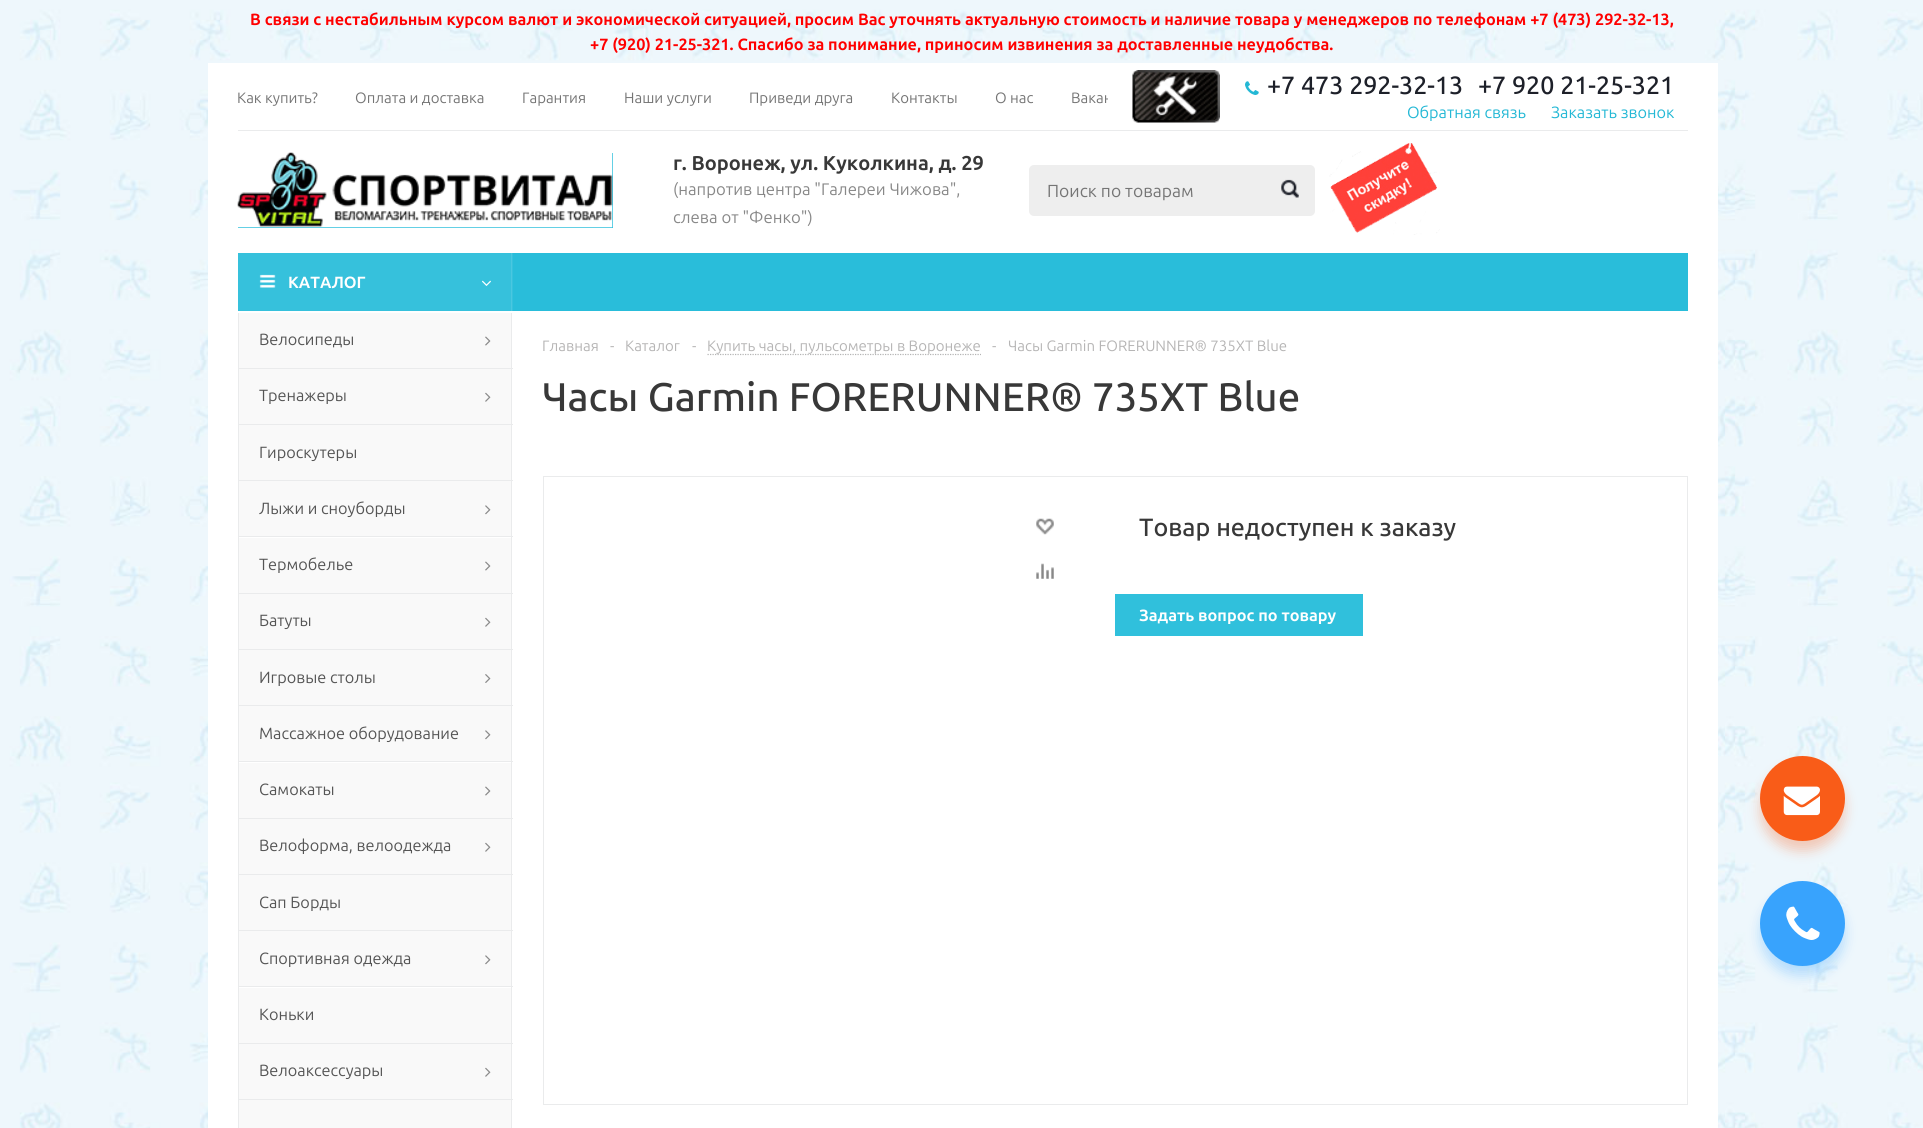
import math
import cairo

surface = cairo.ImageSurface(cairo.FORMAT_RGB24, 1923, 1128)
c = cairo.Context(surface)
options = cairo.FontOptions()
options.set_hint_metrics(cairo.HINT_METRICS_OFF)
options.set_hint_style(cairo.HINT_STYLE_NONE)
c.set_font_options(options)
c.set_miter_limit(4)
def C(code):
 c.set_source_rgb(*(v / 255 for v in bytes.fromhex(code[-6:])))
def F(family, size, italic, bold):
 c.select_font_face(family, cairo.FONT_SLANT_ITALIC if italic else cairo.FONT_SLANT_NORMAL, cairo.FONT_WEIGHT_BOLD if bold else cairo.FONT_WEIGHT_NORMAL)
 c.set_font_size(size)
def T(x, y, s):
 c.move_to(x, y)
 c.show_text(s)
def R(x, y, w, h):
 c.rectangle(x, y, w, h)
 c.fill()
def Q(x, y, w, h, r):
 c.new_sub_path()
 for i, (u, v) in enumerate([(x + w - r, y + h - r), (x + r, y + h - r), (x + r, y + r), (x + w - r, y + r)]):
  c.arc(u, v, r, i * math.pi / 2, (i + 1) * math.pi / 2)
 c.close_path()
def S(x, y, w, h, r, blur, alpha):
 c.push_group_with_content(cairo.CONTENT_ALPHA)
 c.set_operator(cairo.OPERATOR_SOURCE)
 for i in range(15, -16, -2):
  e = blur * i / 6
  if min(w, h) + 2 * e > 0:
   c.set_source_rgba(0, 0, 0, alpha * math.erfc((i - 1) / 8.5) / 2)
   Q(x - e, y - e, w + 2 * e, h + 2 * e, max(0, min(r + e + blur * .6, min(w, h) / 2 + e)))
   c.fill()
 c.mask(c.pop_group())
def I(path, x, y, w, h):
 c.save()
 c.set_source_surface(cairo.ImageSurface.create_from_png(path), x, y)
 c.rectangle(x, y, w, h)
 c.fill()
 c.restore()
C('ffffff')
c.paint()
I('1.png',0,0,1923,1128)
F('Ubuntu',16.25,0,1)
C('ff0000')
T(250,25,'В связи с нестабильным курсом валют и экономической ситуацией, просим Вас уточнять актуальную стоимость и наличие товара у менеджеров по телефонам +7 (473) 292-32-13,')
T(590,50,'+7 (920) 21-25-321. Спасибо за понимание, приносим извинения за доставленные неудобства.')
C('ffffff')
R(208,63,1510,1065)
F('Ubuntu',15,0,0)
C('757575')
T(237,103,'Как купить?')
T(355,103,'Оплата и доставка')
T(522,103,'Гарантия')
T(624,103,'Наши услуги')
T(749,103,'Приведи друга')
T(891,103,'Контакты')
T(995,103,'О нас')
c.save()
c.rectangle(238,75,870,39)
c.clip()
T(1071,103,'Вакан')
c.restore()
I('2.png',1132,70,88,53)
I('3.png',1245,81,14,14)
F('Ubuntu Medium',25,0,0)
C('1d2029')
T(1267,94,'+7 473 292-32-13')
T(1478,94,'+7 920 21-25-321')
F('Ubuntu',16.25,0,0)
C('24b8d5')
T(1407,118,'Обратная связь')
T(1551,118,'Заказать звонок')
C('eaebec')
R(238,130,1450,1)
C('30c0dc')
R(238,153,375,75)
I('4.png',237,152,376,76)
F('Ubuntu',20,0,1)
C('383838')
T(673,170,'г. Воронеж, ул. Куколкина, д. 29')
F('Ubuntu',16.7,0,0)
C('888888')
T(673,195,'(напротив центра "Галереи Чижова",')
T(673,223,'слева от "Фенко")')
C('eeeeee')
Q(1029,165,286,51,5)
c.fill()
F('Ubuntu',17.5,0,0)
C('757575')
T(1047,197,'Поиск по товарам')
I('5.png',1281,179,18,19)
I('6.png',1329,143,111,92)
C('29bdda')
R(513,253,1175,58)
C('36c1dc')
R(238,253,275,58)
I('7.png',259,274,17,14)
F('Ubuntu',16.25,0,1)
C('ffffff')
T(288,288,'КАТАЛОГ')
C('4ac7e0')
R(511,253,1,58)
I('8.png',482,280,9,6)
C('f9f9f9')
R(239,313,272,55)
C('eaebec')
R(511,313,1,55)
R(238,313,1,55)
F('Ubuntu',16.25,0,0)
C('555555')
T(259,345,'Велосипеды')
I('9.png',485,336,6,10)
C('f9f9f9')
R(239,369,272,55)
C('eaebec')
R(238,368,275,1)
R(511,368,1,56)
R(238,368,1,56)
C('555555')
T(259,401,'Тренажеры')
I('10.png',485,392,6,10)
C('f9f9f9')
R(239,425,272,55)
C('eaebec')
R(238,424,275,1)
R(511,424,1,56)
R(238,424,1,56)
C('555555')
T(259,458,'Гироскутеры')
C('f9f9f9')
R(239,481,272,55)
C('eaebec')
R(238,480,275,1)
R(511,480,1,56)
R(238,480,1,56)
C('555555')
T(259,514,'Лыжи и сноуборды')
I('11.png',485,505,6,10)
C('f9f9f9')
R(239,538,272,55)
C('eaebec')
R(238,536,275,1)
R(511,536,1,57)
R(238,536,1,57)
C('555555')
T(259,570,'Термобелье')
I('9.png',485,561,6,10)
C('f9f9f9')
R(239,594,272,55)
C('eaebec')
R(238,593,275,1)
R(511,593,1,56)
R(238,593,1,56)
C('555555')
T(259,626,'Батуты')
I('10.png',485,617,6,10)
C('f9f9f9')
R(239,650,272,55)
C('eaebec')
R(238,649,275,1)
R(511,649,1,56)
R(238,649,1,56)
C('555555')
T(259,683,'Игровые столы')
I('12.png',485,674,6,9)
C('f9f9f9')
R(239,706,272,55)
C('eaebec')
R(238,705,275,1)
R(511,705,1,56)
R(238,705,1,56)
C('555555')
T(259,739,'Массажное оборудование')
I('11.png',485,730,6,10)
C('f9f9f9')
R(239,763,272,55)
C('eaebec')
R(238,761,275,1)
R(511,761,1,57)
R(238,761,1,57)
C('555555')
T(259,795,'Самокаты')
I('9.png',485,786,6,10)
C('f9f9f9')
R(239,819,272,55)
C('eaebec')
R(238,818,275,1)
R(511,818,1,56)
R(238,818,1,56)
C('555555')
T(259,851,'Велоформа, велоодежда')
I('10.png',485,842,6,10)
C('f9f9f9')
R(239,875,272,55)
C('eaebec')
R(238,874,275,1)
R(511,874,1,56)
R(238,874,1,56)
C('555555')
T(259,908,'Сап Борды')
C('f9f9f9')
R(239,931,272,55)
C('eaebec')
R(238,930,275,1)
R(511,930,1,56)
R(238,930,1,56)
C('555555')
T(259,964,'Спортивная одежда')
I('11.png',485,955,6,10)
C('f9f9f9')
R(239,988,272,55)
C('eaebec')
R(238,986,275,1)
R(511,986,1,57)
R(238,986,1,57)
C('555555')
T(259,1020,'Коньки')
C('f9f9f9')
R(239,1044,272,55)
C('eaebec')
R(238,1043,275,1)
R(511,1043,1,56)
R(238,1043,1,56)
C('555555')
T(259,1076,'Велоаксессуары')
I('10.png',485,1067,6,10)
C('f9f9f9')
R(239,1100,272,28)
C('eaebec')
R(238,1099,275,1)
R(511,1099,1,29)
R(238,1099,1,29)
F('Ubuntu',15,0,0)
C('b6b5b5')
T(542,351,'Главная')
T(610,351,'-')
T(625,351,'Каталог')
T(692,351,'-')
c.new_path()
c.move_to(707.5,354.5)
c.line_to(981,354.5)
C('b4b4b4')
c.set_line_width(1.2)
c.set_dash([1.25,1.25])
c.stroke()
C('b6b5b5')
T(707,351,'Купить часы, пульсометры в Воронеже')
T(992,351,'-')
T(1008,351,'Часы Garmin FORERUNNER® 735XT Blue')
F('Ubuntu Medium',40,0,0)
C('383838')
T(542,411,'Часы Garmin FORERUNNER® 735XT Blue')
c.rectangle(543.5,476.5,1144,628)
C('eaebec')
c.set_line_width(1)
c.set_dash([])
c.stroke()
I('13.png',1036,518,18,17)
I('14.png',1036,563,18,16)
F('Ubuntu Medium',25,0,0)
C('383838')
T(1139,536,'Товар недоступен к заказу')
C('30c0dc')
R(1115,594,248,42)
F('Ubuntu',16.25,0,1)
C('ffffff')
T(1139,621,'Задать вопрос по товару')
C('f95c18')
S(1760,766,85,85,42.5,6,.3)
C('f95c18')
c.arc(1802.5,798.5,41,0,2 * math.pi)
c.fill_preserve()
c.set_line_width(3)
c.stroke()
I('15.png',1783,786,37,30)
C('38a3fd')
S(1760,891,85,85,42.5,6,.3)
C('38a3fd')
c.arc(1802.5,923.5,41,0,2 * math.pi)
c.fill_preserve()
c.stroke()
I('16.png',1786,906,34,34)
surface.write_to_png('o.png')
